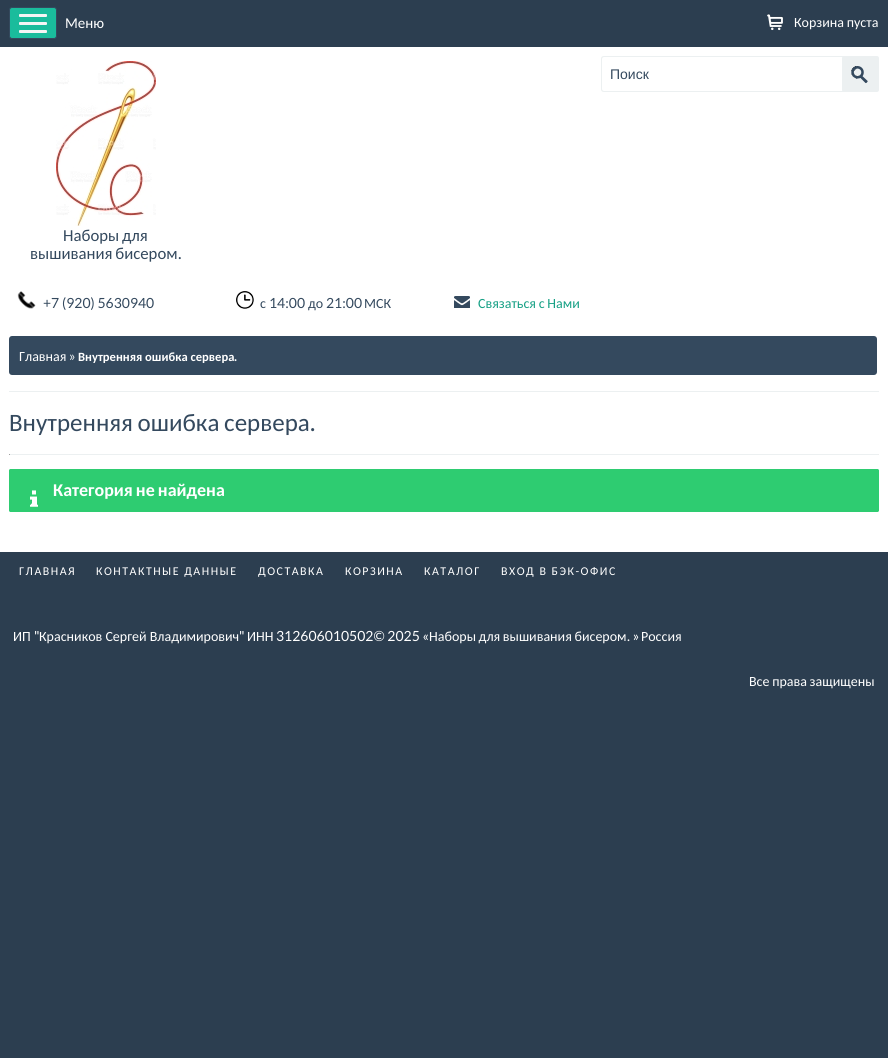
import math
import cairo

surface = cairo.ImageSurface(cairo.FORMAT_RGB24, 888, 1058)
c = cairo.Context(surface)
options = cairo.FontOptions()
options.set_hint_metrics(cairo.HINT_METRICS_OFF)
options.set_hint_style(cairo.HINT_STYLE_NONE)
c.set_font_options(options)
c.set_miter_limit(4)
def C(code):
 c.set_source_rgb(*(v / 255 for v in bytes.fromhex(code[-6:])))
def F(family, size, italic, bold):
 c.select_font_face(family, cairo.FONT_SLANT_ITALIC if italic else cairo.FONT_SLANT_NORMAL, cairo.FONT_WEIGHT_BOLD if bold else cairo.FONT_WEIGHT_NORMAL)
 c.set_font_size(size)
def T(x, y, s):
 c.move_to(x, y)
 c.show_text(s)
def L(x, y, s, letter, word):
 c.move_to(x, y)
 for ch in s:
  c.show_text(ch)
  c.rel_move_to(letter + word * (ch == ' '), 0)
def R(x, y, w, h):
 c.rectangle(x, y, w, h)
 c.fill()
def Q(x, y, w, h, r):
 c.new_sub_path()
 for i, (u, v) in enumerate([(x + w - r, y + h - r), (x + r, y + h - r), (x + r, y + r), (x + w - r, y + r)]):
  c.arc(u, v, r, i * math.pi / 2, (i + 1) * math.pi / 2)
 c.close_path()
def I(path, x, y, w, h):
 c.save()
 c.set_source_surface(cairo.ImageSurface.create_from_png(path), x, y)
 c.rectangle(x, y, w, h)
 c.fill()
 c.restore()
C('2c3e50')
c.paint()
C('1abc9c')
Q(9.5,7.5,47,31,2.5)
c.fill_preserve()
C('34495e')
c.set_line_width(1)
c.stroke()
C('f5f5f5')
Q(19,14,28,3,1)
c.fill()
Q(19,22,28,3,1)
c.fill()
Q(19,30,28,3,1)
c.fill()
F('Carlito',15,0,0)
C('ffffff')
T(65,28,'Меню')
I('1.png',767,13,16,18)
F('Carlito',14,0,0)
L(794,27,'Корзина пуста',0,-.5)
R(0,47,888,505)
C('ecf0f1')
c.set_fill_rule(cairo.FILL_RULE_EVEN_ODD)
c.new_path()
c.move_to(604,56)
c.line_to(860,56)
c.curve_to(862,56,863,57,863,59)
c.line_to(863,89)
c.curve_to(863,91,862,92,860,92)
c.line_to(604,92)
c.curve_to(602,92,601,91,601,89)
c.line_to(601,59)
c.curve_to(601,57,602,56,604,56)
c.close_path()
c.move_to(604,57)
c.line_to(860,57)
c.curve_to(862,57,863,58,863,59)
c.line_to(863,89)
c.curve_to(863,90,862,91,860,91)
c.line_to(604,91)
c.curve_to(603,91,602,90,602,89)
c.line_to(602,59)
c.curve_to(602,58,603,57,604,57)
c.close_path()
c.fill()
F('Liberation Sans',14,0,0)
C('34495e')
T(610,79,'Поиск')
C('ecf0f1')
Q(842,56,37,36,2)
c.fill()
I('2.png',851,66,17,18)
I('3.png',56,61,100,165)
F('Carlito',16.75,0,0)
C('34495e')
L(63,241,'Наборы для',0,-1)
L(30,259,'вышивания бисером',0,-1)
F('Lato',16.75,0,0)
T(178,259,'.')
I('4.png',17,291,19,18)
F('Lato',14,0,0)
T(43,308,'+7 (920) 5630940')
I('5.png',236,291,18,18)
F('Carlito',14,0,0)
T(260,308,'с')
F('Lato',14,0,0)
T(269,308,'14:00')
F('Carlito',14,0,0)
T(308,308,'до')
F('Lato',14,0,0)
T(326,308,'21:00')
F('Carlito',14,0,0)
T(364,308,'МСК')
I('6.png',454,296,16,12)
C('16a085')
L(478,308,'Связаться с Нами',0,-.5)
C('34495e')
Q(9,336,868,39,3)
c.fill()
C('ffffff')
T(19,361,'Главная')
F('Lato',14,0,0)
C('ecf0f1')
T(69,361,'»')
F('Carlito',12.6,0,1)
C('ffffff')
T(78,361,'Внутренняя ошибка сервера')
F('Lato',12.6,0,1)
T(234,361,'.')
C('ecf0f1')
R(9,391,870,1)
F('Carlito',25,0,0)
C('34495e')
L(9,431,'Внутренняя ошибка сервера',0,-1)
F('Lato',25,0,0)
T(310,431,'.')
C('ecf0f1')
R(9,454,870,1)
C('eeeeee')
R(878,454,1,1)
C('9f9f9f')
R(9,454,1,1)
C('2ecc71')
Q(9,469,870,43,2)
c.fill()
I('7.png',30,490,8,17)
Q(9.5,469.5,869,42,1.5)
c.stroke()
F('Carlito',18,0,1)
C('ffffff')
L(53,496,'Категория не найдена',0,-1)
F('Carlito',11.9,0,0)
L(19,575,'ГЛАВНАЯ',1.5,0)
L(96,575,'КОНТАКТНЫЕ ДАННЫЕ',1.5,0)
L(258,575,'ДОСТАВКА',1.5,0)
L(345,575,'КОРЗИНА',1.5,0)
L(424,575,'КАТАЛОГ',1.5,0)
L(501,575,'ВХОД В БЭК-ОФИС',1.5,0)
F('Carlito',14,0,0)
T(13,641,'ИП')
F('Lato',14,0,0)
T(34,641,'"')
F('Carlito',14,0,0)
T(39,641,'Красников Сергей Владимирович')
F('Lato',14,0,0)
T(239,641,'"')
F('Carlito',14,0,0)
T(247,641,'ИНН')
F('Lato',14,0,0)
T(276,641,'312606010502© 2025 «')
F('Carlito',14,0,0)
L(429,641,'Наборы для вышивания бисером',0,-.5)
F('Lato',14,0,0)
T(627,641,'. »')
F('Carlito',14,0,0)
T(641,641,'Россия')
L(749,686,'Все права защищены',0,-.5)
surface.write_to_png('o.png')
